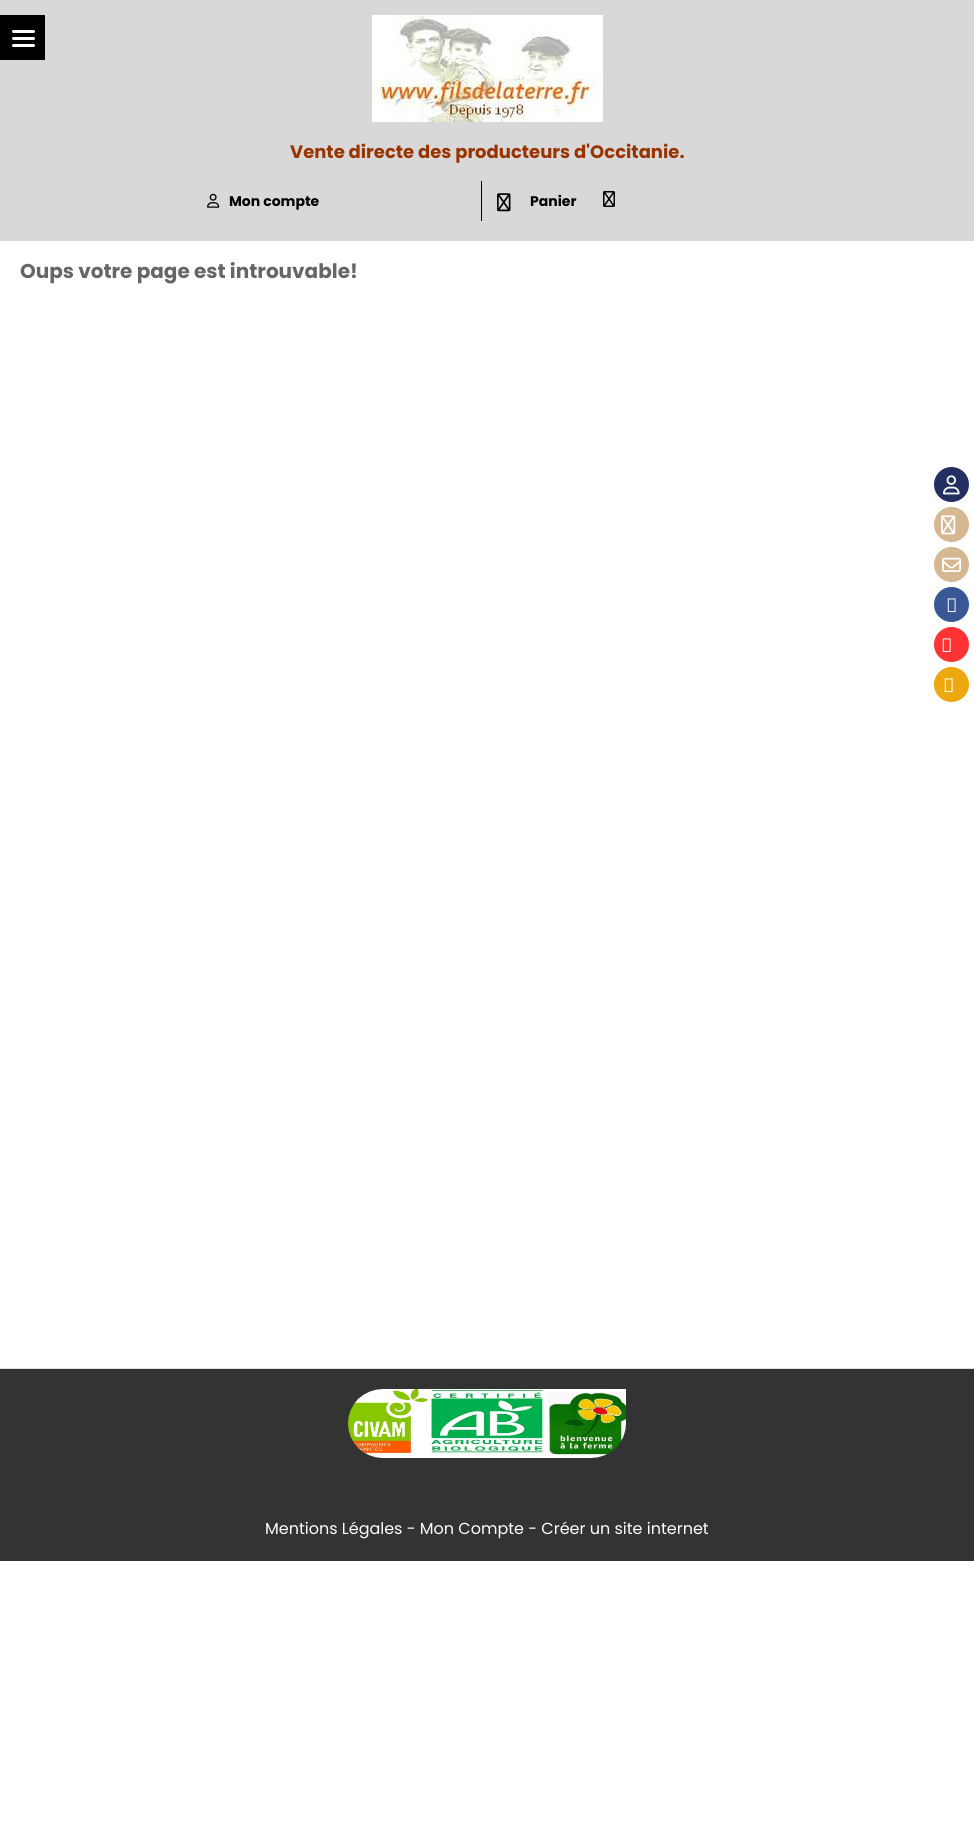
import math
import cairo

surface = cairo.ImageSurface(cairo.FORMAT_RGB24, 974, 1846)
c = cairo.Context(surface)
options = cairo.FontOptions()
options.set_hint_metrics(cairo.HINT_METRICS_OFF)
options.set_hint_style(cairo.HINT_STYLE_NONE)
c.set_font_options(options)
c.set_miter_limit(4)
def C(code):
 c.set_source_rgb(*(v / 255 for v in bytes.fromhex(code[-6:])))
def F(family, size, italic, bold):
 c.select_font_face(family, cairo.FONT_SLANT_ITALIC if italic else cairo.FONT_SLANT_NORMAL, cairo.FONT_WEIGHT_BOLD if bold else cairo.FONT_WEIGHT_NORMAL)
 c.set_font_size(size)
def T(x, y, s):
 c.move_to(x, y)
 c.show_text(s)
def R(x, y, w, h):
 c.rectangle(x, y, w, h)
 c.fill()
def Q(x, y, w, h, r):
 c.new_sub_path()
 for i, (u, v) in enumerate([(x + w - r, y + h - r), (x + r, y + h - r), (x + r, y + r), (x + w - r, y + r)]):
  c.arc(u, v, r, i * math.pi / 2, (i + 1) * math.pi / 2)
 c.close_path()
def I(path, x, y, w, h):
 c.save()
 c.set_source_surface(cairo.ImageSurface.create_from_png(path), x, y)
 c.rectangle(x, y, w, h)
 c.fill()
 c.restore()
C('ffffff')
c.paint()
C('d8d8d8')
R(0,0,974,241)
C('000000')
R(0,15,45,45)
C('ffffff')
Q(12,30,23,3,1.5)
c.fill()
Q(12,37,23,3,1.5)
c.fill()
Q(12,44,23,3,1.5)
c.fill()
I('1.png',372,15,231,107)
F('Poppins',18,0,1)
C('993300')
T(290,158,'Vente directe des producteurs d\'Occitanie.')
C('000000')
R(481,181,1,40)
I('2.png',207,193,13,15)
F('Poppins',14,0,1)
T(229,206,'Mon compte')
I('3.png',497,193,14,19)
T(530,206,'Panier')
I('4.png',603,191,12,16)
F('Poppins',20,0,1)
C('666666')
T(20,278,'Oups votre page est introuvable!')
C('333333')
R(0,1369,974,192)
C('e1e1e1')
R(0,1368,974,1)
I('5.png',348,1389,278,69)
F('Poppins',16,0,0)
C('ffffff')
T(265,1534,'Mentions Légales - Mon Compte - Créer un site internet')
C('243062')
c.new_path()
c.arc(951.5,484.5,17.5,0,2 * math.pi)
c.fill()
I('6.png',943,475,17,20)
C('d5b791')
c.arc(951.5,524.5,17.5,0,2 * math.pi)
c.fill()
I('7.png',941,515,15,20)
c.arc(951.5,564.5,17.5,0,2 * math.pi)
c.fill()
I('8.png',942,557,19,15)
C('3a5795')
c.arc(951.5,604.5,17.5,0,2 * math.pi)
c.fill()
I('9.png',947,598,9,14)
C('ff3333')
c.arc(951.5,644.5,17.5,0,2 * math.pi)
c.fill()
I('10.png',942,638,9,14)
C('eea80f')
c.arc(951.5,684.5,17.5,0,2 * math.pi)
c.fill()
I('11.png',944,678,9,14)
surface.write_to_png('o.png')
